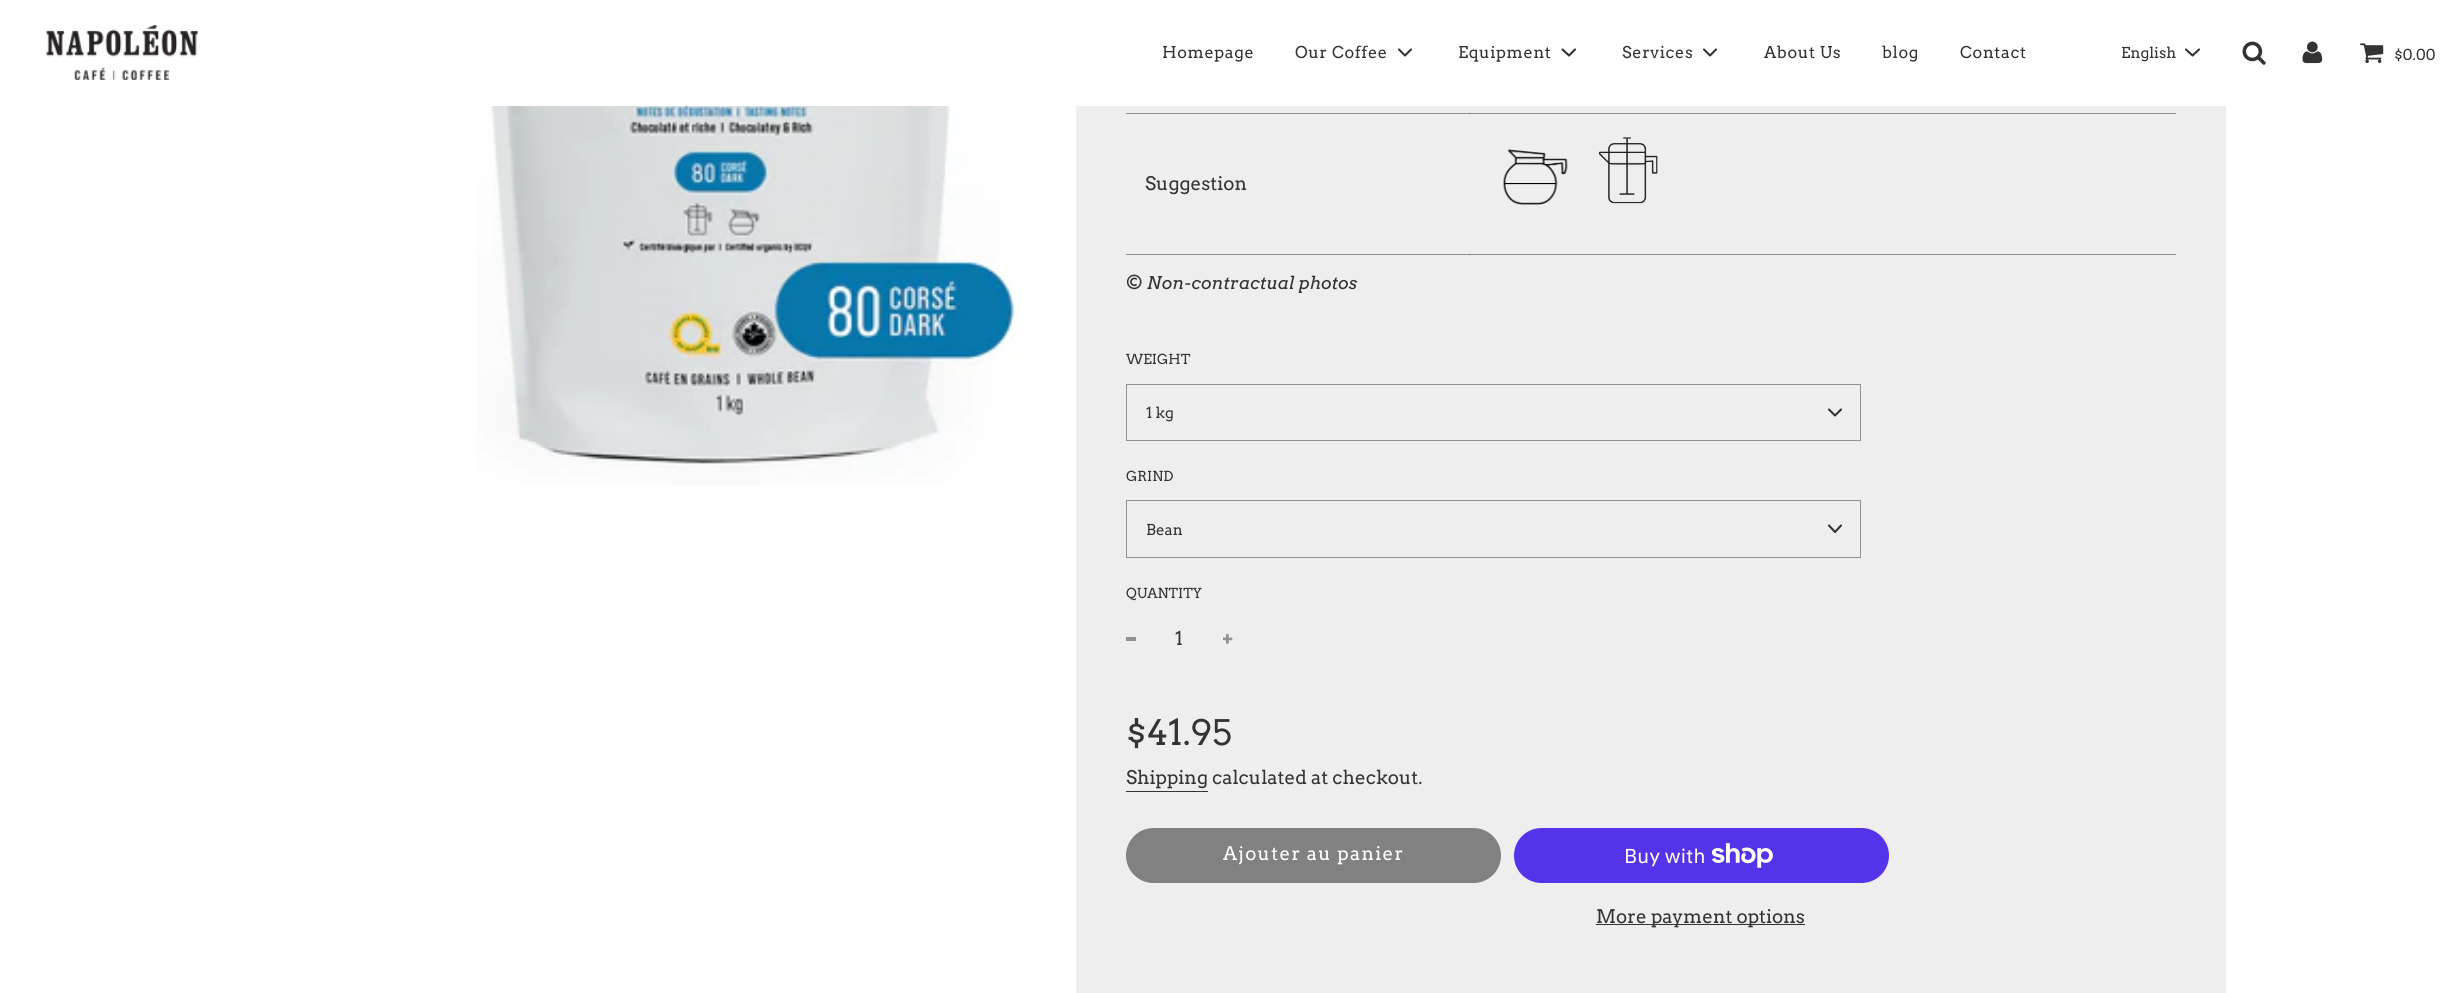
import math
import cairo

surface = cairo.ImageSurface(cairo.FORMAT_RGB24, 2453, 993)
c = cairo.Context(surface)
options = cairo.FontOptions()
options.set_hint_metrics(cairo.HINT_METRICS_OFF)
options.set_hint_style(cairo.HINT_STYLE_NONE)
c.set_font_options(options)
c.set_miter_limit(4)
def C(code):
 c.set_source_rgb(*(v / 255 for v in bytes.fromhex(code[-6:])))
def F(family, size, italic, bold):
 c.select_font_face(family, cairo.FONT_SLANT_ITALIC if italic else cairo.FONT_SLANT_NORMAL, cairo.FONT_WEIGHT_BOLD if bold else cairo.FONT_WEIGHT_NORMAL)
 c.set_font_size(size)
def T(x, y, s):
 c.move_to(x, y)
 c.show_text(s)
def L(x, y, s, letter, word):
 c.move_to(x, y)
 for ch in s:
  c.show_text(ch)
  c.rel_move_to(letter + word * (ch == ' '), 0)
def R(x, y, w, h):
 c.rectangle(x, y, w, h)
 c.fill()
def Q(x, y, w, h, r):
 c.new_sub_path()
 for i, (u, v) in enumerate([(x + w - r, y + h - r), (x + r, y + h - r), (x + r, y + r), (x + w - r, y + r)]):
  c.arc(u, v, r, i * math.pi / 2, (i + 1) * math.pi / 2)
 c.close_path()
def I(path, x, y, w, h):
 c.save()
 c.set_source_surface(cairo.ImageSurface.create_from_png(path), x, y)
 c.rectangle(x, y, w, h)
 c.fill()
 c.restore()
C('ffffff')
c.paint()
I('1.png',46,25,152,55)
F('Arvo',16.25,0,0)
C('333333')
L(1162,58,'Homepage',.6,0)
L(1295,58,'Our Coffee',.6,0)
c.new_path()
c.move_to(1399,49.5)
c.line_to(1405,55.5)
c.line_to(1411,49.5)
c.set_line_width(2.1)
c.set_line_cap(cairo.LINE_CAP_ROUND)
c.set_line_join(cairo.LINE_JOIN_ROUND)
c.stroke()
L(1458,58,'Equipment',.6,0)
c.new_path()
c.move_to(1562.5,49.5)
c.line_to(1569,55.5)
c.line_to(1575,49.5)
c.stroke()
L(1622,58,'Services',.6,0)
c.new_path()
c.move_to(1704,49.5)
c.line_to(1710,55.5)
c.line_to(1716,49.5)
c.stroke()
L(1764,58,'About Us',.6,0)
L(1882,58,'blog',.6,0)
L(1960,58,'Contact',.6,0)
F('Arvo',15,0,0)
T(2121,58,'English')
c.new_path()
c.move_to(2186,49.5)
c.line_to(2192.5,55.5)
c.line_to(2199,49.5)
c.stroke()
I('2.png',2242,41,24,24)
I('3.png',2302,41,21,23)
I('4.png',2360,43,24,20)
T(2394,60,'$0.00')
I('5.png',476,106,540,379)
C('eeeeee')
R(1076,106,1150,887)
C('919191')
R(1126,113,1050,1)
R(1126,254,1050,1)
C('626262')
R(1469,113,1,1)
F('Arvo',18.75,0,0)
C('333333')
T(1145,190,'Suggestion')
C('626262')
R(1469,254,1,1)
I('6.png',1503,149,65,56)
I('7.png',1598,137,60,67)
F('Arvo',17.5,1,0)
C('333333')
T(1126,289,'© Non-contractual photos')
F('Arvo',13.75,0,0)
T(1126,364,'WEIGHT')
c.rectangle(1126.5,384.5,734,56)
C('919191')
c.set_line_width(1)
c.set_line_cap(cairo.LINE_CAP_BUTT)
c.set_line_join(cairo.LINE_JOIN_MITER)
c.stroke()
F('Arvo',15,0,0)
C('333333')
T(1146,418,'1 kg')
c.new_path()
c.move_to(1829,409.5)
c.line_to(1835,415.5)
c.line_to(1841,409.5)
c.set_line_width(2.1)
c.set_line_cap(cairo.LINE_CAP_ROUND)
c.set_line_join(cairo.LINE_JOIN_ROUND)
c.stroke()
F('Arvo',13.75,0,0)
T(1126,481,'GRIND')
c.rectangle(1126.5,500.5,734,57)
C('919191')
c.set_line_width(1)
c.set_line_cap(cairo.LINE_CAP_BUTT)
c.set_line_join(cairo.LINE_JOIN_MITER)
c.stroke()
F('Arvo',15,0,0)
C('333333')
T(1146,535,'Bean')
c.new_path()
c.move_to(1829,525.5)
c.line_to(1835,532)
c.line_to(1841,525.5)
c.set_line_width(2.1)
c.set_line_cap(cairo.LINE_CAP_ROUND)
c.set_line_join(cairo.LINE_JOIN_ROUND)
c.stroke()
F('Arvo',13.75,0,0)
T(1126,598,'QUANTITY')
C('919191')
R(1126,637,10,4)
F('Arvo',18.75,0,0)
C('333333')
T(1175,645,'1')
I('8.png',1223,633,10,11)
F('Arvo',35,0,0)
T(1126,745,'$41.95')
F('Arvo',18.75,0,0)
T(1126,784,'Shipping calculated at checkout.')
R(1126,791,82,1)
C('818181')
Q(1126,828,375,55,27.5)
c.fill()
C('ffffff')
L(1223,860,'Ajouter au panier',1.25,0)
C('5433eb')
Q(1514,828,375,55,27.5)
c.fill()
F('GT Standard',20,0,0)
C('ffffff')
T(1624,863,'Buy with')
I('9.png',1711,843,62,25)
C('333333')
R(1596,924,209,1)
F('Arvo',18.75,0,0)
T(1596,923,'More payment options')
surface.write_to_png('o.png')
